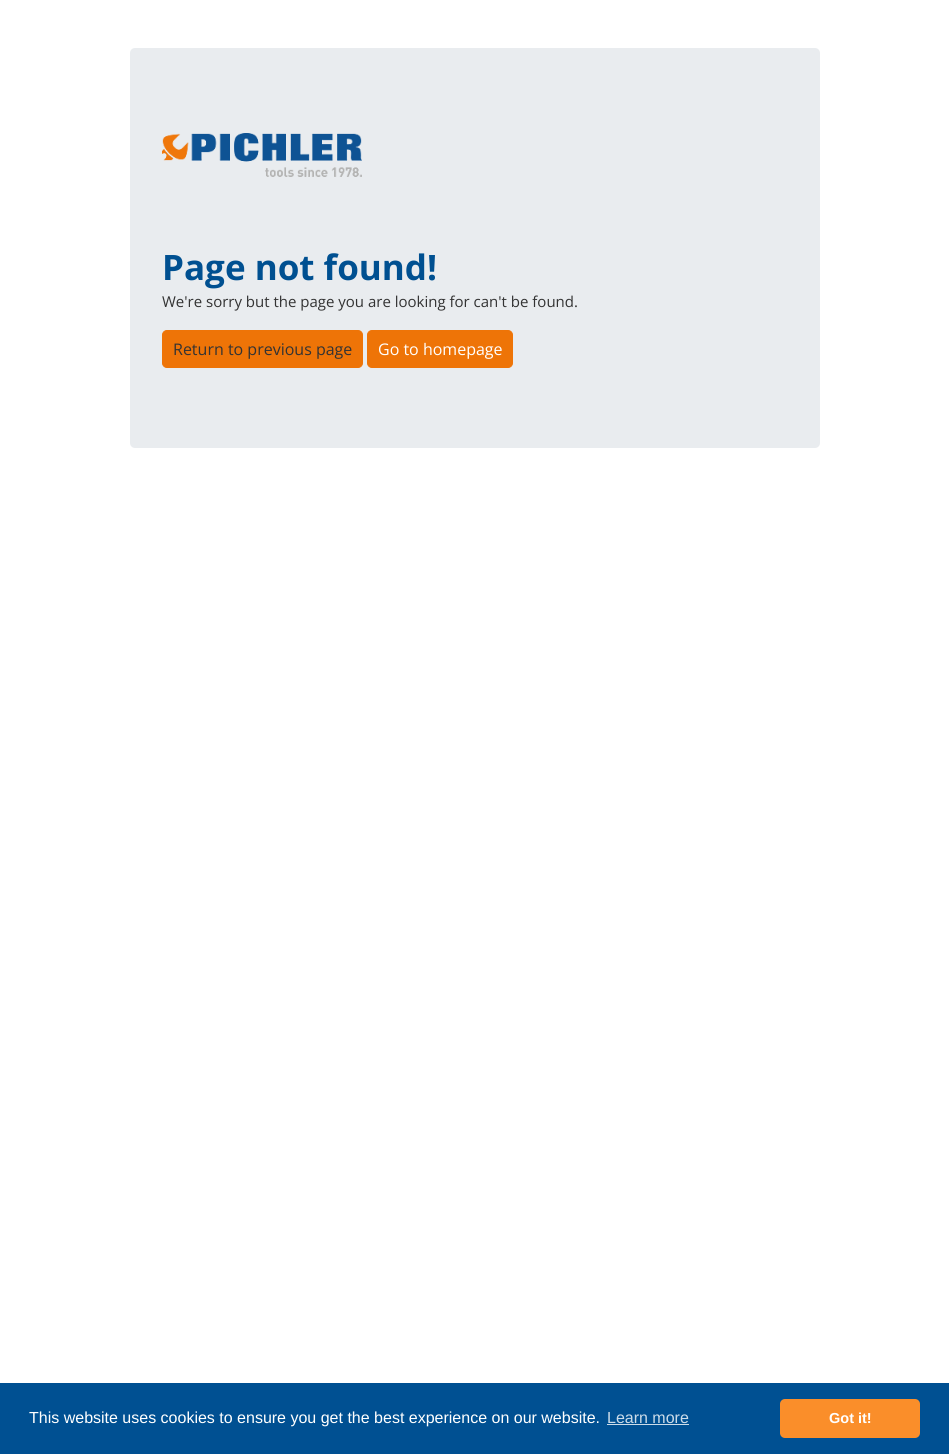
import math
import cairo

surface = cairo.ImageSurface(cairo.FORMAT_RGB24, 949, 1454)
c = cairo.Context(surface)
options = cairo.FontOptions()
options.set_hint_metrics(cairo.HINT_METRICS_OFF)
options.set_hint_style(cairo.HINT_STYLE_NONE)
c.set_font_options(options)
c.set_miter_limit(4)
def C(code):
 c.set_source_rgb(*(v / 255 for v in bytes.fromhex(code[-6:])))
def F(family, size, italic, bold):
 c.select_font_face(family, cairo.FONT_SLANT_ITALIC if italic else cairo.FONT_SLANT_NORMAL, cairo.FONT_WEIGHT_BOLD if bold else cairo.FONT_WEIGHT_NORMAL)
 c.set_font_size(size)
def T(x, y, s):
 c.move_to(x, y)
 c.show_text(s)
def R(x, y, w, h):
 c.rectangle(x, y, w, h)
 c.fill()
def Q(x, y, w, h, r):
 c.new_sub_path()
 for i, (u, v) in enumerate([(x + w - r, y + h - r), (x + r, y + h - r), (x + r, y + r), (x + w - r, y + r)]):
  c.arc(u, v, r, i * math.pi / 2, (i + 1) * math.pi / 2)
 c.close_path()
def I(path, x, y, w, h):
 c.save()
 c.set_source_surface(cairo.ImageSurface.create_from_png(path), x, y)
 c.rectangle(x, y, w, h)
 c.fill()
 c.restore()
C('ffffff')
c.paint()
C('e9ecef')
Q(130,48,690,400,5)
c.fill()
I('1.png',162,133,200,44)
F('Open Sans',35,0,1)
C('005091')
T(162,280,'Page not found!')
F('Open Sans',15,0,0)
C('333333')
T(162,307,'We\'re sorry but the page you are looking for can\'t be found.')
C('ee7407')
Q(162.5,330.5,200,37,4.5)
c.fill_preserve()
c.set_line_width(1)
c.stroke()
F('Open Sans',16,0,0)
C('333333')
T(173,355,'Return to previous page')
C('ee7407')
Q(367.5,330.5,145,37,4.5)
c.fill_preserve()
c.stroke()
C('ffffff')
T(378,355,'Go to homepage')
C('005092')
R(0,1383,949,71)
F('Liberation Sans',16,0,0)
C('ffffff')
T(29,1423,'This website uses cookies to ensure you get the best experience on our website.')
C('ccdce9')
T(607,1423,'Learn more')
R(607,1424,82,1)
C('fa8e2a')
Q(780,1399,140,39,5)
c.fill()
F('Liberation Sans',14.5,0,1)
C('ffffff')
T(829,1423,'Got it!')
surface.write_to_png('o.png')
